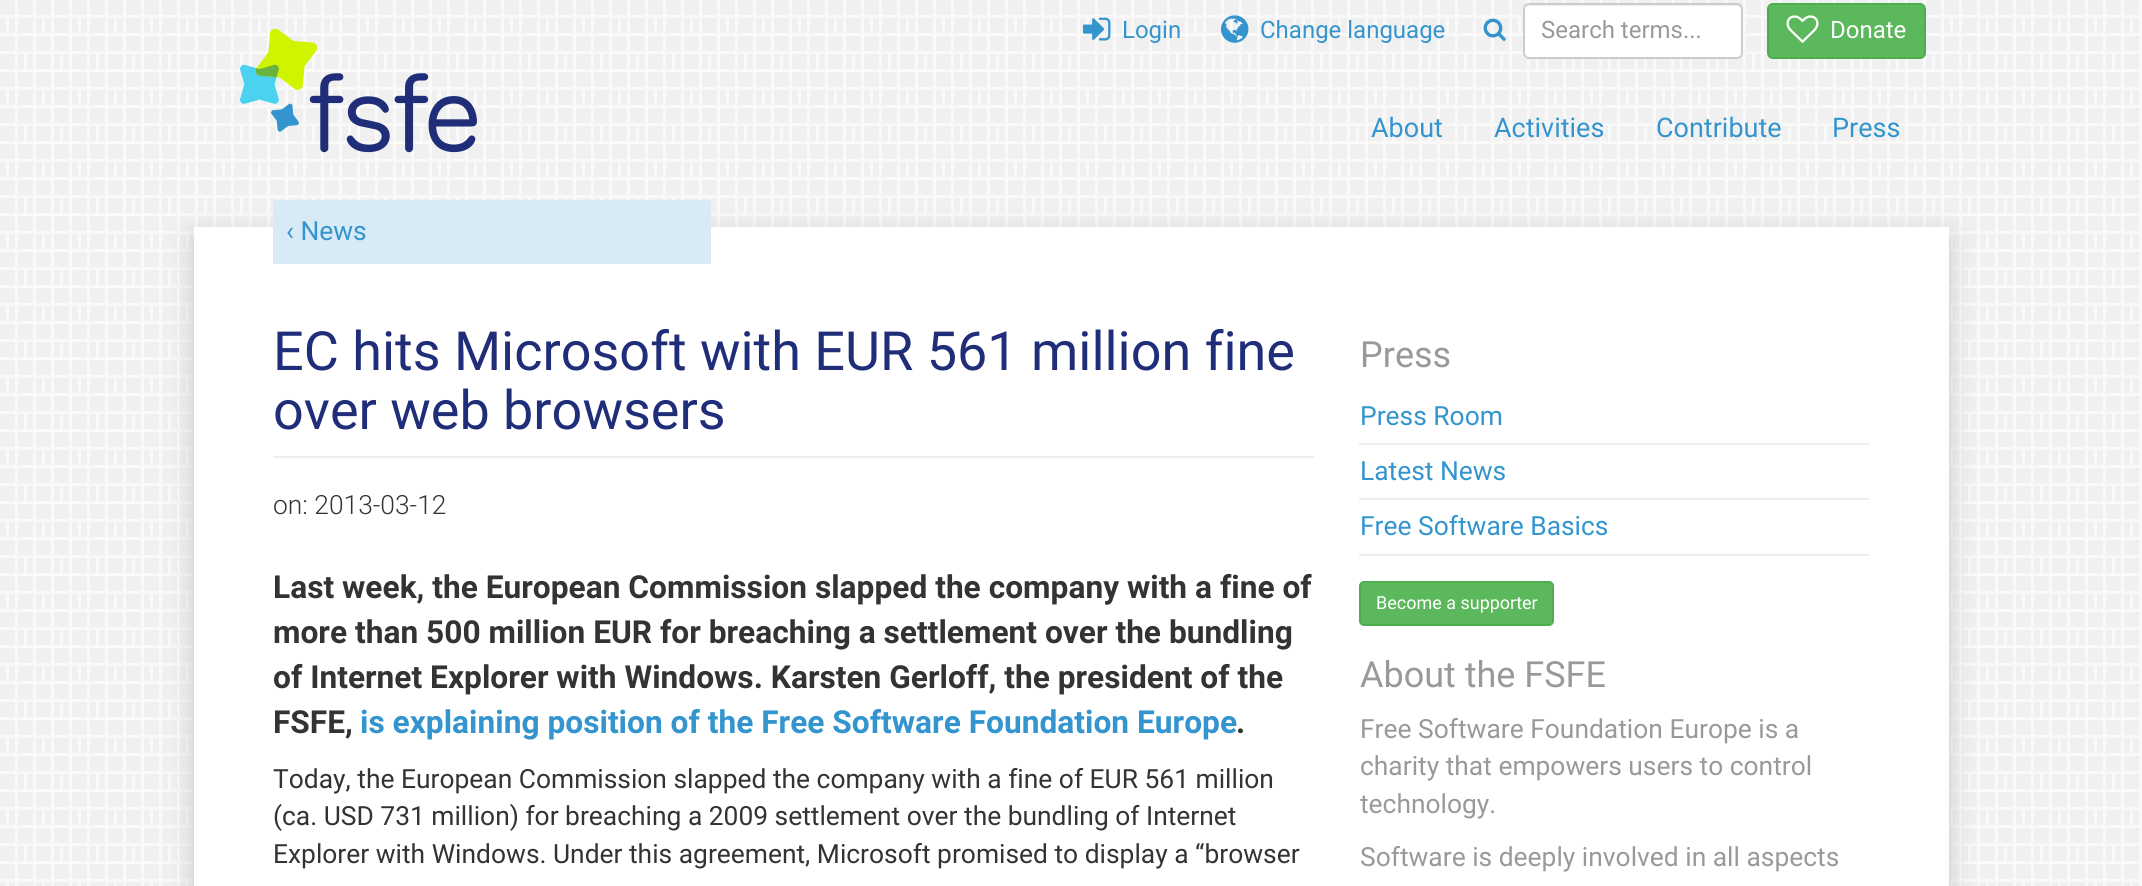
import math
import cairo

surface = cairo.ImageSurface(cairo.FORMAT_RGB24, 2142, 886)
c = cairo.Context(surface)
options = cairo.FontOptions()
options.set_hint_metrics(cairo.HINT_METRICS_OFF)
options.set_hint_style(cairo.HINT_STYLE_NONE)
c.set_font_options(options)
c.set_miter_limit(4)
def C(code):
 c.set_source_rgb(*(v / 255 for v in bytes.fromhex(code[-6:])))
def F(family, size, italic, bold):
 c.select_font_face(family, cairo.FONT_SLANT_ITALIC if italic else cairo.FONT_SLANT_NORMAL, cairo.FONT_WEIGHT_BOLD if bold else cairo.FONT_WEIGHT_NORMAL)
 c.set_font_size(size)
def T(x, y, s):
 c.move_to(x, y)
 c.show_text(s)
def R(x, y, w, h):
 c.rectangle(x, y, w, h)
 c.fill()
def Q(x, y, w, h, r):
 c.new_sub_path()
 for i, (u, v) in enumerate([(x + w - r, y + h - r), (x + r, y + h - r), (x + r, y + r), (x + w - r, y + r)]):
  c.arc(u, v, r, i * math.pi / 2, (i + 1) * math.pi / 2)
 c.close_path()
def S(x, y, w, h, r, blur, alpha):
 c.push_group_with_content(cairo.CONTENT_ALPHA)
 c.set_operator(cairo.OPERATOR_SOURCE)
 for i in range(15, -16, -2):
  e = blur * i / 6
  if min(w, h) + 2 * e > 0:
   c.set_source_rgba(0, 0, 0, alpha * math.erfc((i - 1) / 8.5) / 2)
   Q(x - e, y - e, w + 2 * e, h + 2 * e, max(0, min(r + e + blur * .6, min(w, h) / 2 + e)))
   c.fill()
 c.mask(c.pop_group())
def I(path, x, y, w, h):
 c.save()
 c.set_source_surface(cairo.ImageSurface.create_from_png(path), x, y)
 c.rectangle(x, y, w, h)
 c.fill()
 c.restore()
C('f9f9f9')
c.paint()
I('1.png',0,0,2139,886)
I('2.png',240,29,237,124)
I('3.png',1083,17,28,24)
F('Roboto',24,0,0)
C('3394ce')
T(1122,38,'Login')
I('4.png',1221,15,28,28)
T(1260,38,'Change language')
I('5.png',1483,18,23,23)
C('ffffff')
Q(1523,3,220,56,6)
c.fill()
C('ececec')
c.new_path()
c.move_to(1528,6)
c.line_to(1737,6)
c.curve_to(1739,6,1742,8,1742,10)
c.curve_to(1742,7,1740,5,1737,5)
c.line_to(1529,5)
c.curve_to(1526,5,1524,7,1524,10)
c.curve_to(1524,8,1526,6,1528,6)
c.close_path()
c.fill()
Q(1524,4,218,54,5)
C('cccccc')
c.stroke()
C('999999')
T(1541,38,'Search terms...')
C('5cb85c')
Q(1768,4,157,54,5)
c.fill_preserve()
C('4cae4c')
c.stroke()
I('6.png',1786,15,33,28)
C('ffffff')
T(1830,38,'Donate')
F('Roboto',27,0,0)
C('3394ce')
T(1371,137,'About')
T(1494,137,'Activities')
T(1656,137,'Contribute')
T(1832,137,'Press')
C('c8c8c8')
S(194,237,1755,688,0,13,1)
C('ffffff')
R(194,227,1755,659)
C('d7eaf6')
R(273,200,438,64)
F('Roboto',26.4,0,0)
C('3394ce')
T(286,240,'‹ News')
C('eeeeee')
R(273,456,1041,2)
F('Roboto',54,0,0)
C('202d79')
T(273,370,'EC hits Microsoft with EUR 561 million fine')
T(273,429,'over web browsers')
F('Roboto Light',26.4,0,0)
C('333333')
T(273,514,'on: 2013-03-12')
F('Roboto',31.7,0,1)
T(273,598,'Last week, the European Commission slapped the company with a fine of')
T(273,643,'more than 500 million EUR for breaching a settlement over the bundling')
T(273,688,'of Internet Explorer with Windows. Karsten Gerloff, the president of the')
T(273,733,'FSFE,')
C('3394ce')
T(360,733,'is explaining position of the Free Software Foundation Europe')
C('333333')
T(1236,733,'.')
F('Roboto',26.4,0,0)
T(273,788,'Today, the European Commission slapped the company with a fine of EUR 561 million')
T(273,825,'(ca. USD 731 million) for breaching a 2009 settlement over the bundling of Internet')
T(273,863,'Explorer with Windows. Under this agreement, Microsoft promised to display a “browser')
F('Roboto',36,0,0)
C('999999')
T(1360,367,'Press')
C('eeeeee')
R(1359,443,510,2)
F('Roboto',26.4,0,0)
C('3394ce')
T(1360,425,'Press Room')
C('eeeeee')
R(1359,498,510,2)
C('3394ce')
T(1360,480,'Latest News')
C('eeeeee')
R(1359,554,510,2)
C('3394ce')
T(1360,535,'Free Software Basics')
C('5cb85c')
Q(1360,582,193,43,4)
c.fill_preserve()
C('4cae4c')
c.stroke()
F('Roboto',18,0,0)
C('ffffff')
T(1376,609,'Become a supporter')
F('Roboto',36,0,0)
C('999999')
T(1360,687,'About the FSFE')
F('Roboto',26.4,0,0)
T(1360,738,'Free Software Foundation Europe is a')
T(1360,775,'charity that empowers users to control')
T(1360,813,'technology.')
T(1360,866,'Software is deeply involved in all aspects')
surface.write_to_png('o.png')
